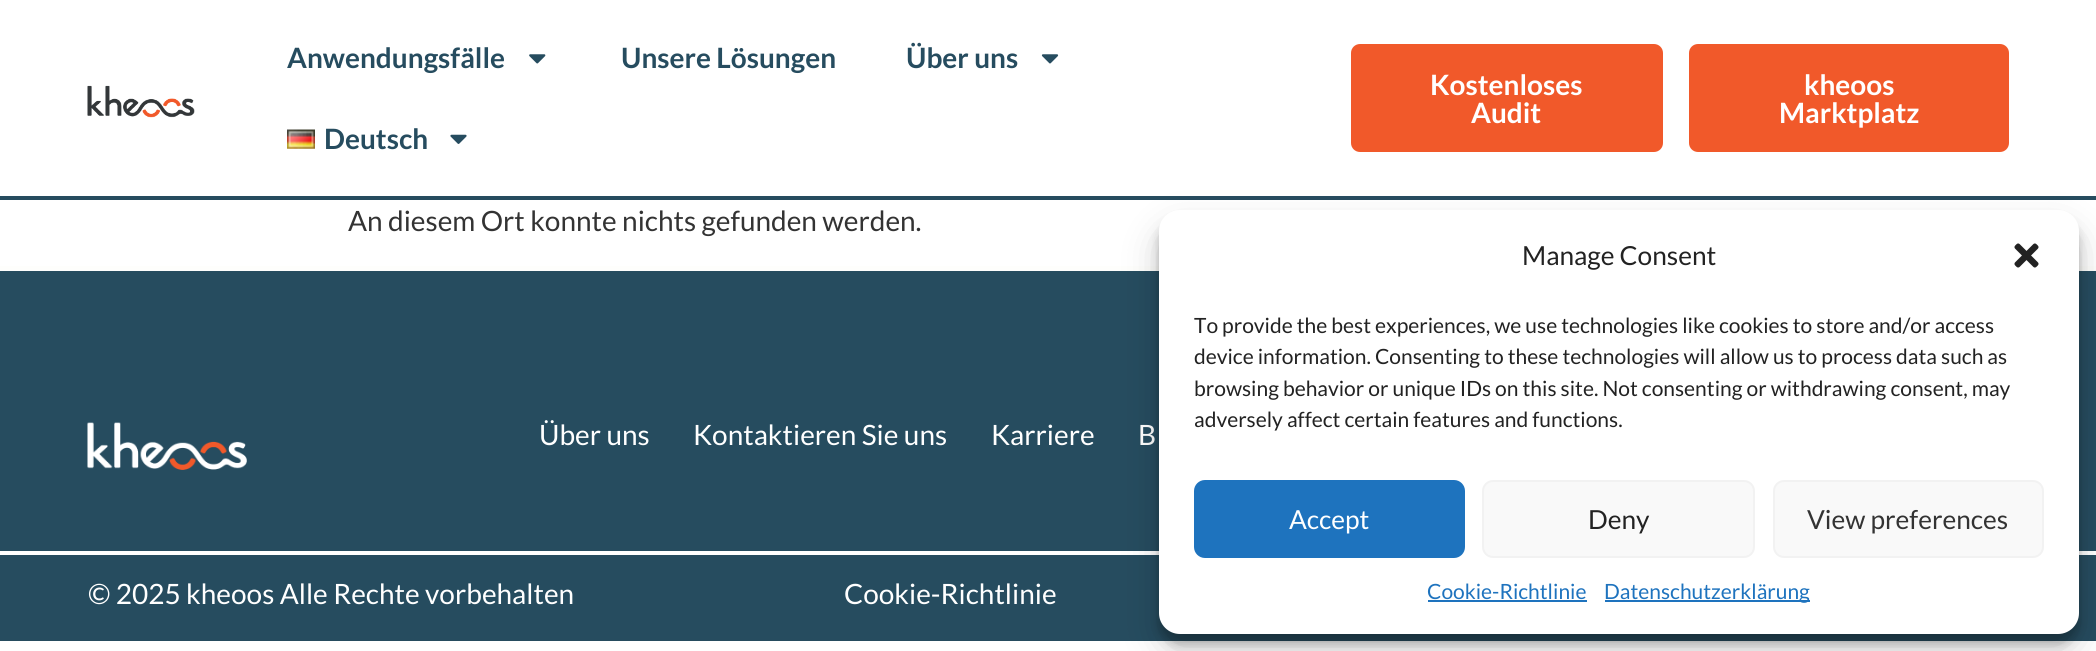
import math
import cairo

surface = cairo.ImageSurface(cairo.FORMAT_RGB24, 2096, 651)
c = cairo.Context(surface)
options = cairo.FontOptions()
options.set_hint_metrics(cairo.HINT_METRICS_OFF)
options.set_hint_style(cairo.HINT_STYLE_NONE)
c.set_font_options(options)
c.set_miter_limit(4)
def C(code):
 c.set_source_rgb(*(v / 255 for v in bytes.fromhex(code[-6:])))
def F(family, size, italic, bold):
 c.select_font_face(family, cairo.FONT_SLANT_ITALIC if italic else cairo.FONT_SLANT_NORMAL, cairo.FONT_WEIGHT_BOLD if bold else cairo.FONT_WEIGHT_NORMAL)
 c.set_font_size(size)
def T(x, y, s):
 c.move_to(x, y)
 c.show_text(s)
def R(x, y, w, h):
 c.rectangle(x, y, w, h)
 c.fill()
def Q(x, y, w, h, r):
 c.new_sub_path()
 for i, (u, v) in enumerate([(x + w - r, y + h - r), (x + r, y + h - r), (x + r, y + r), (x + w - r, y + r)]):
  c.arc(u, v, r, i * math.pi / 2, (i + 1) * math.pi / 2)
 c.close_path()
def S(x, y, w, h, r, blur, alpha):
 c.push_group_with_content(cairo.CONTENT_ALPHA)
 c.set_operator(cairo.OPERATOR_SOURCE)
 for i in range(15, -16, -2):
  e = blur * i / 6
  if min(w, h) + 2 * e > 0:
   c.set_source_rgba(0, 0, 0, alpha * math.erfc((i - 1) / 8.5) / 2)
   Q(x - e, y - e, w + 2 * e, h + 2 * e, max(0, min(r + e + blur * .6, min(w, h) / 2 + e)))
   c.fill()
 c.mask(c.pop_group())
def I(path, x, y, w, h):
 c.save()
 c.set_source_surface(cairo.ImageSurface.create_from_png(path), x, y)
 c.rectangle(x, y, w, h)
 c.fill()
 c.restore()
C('ffffff')
c.paint()
C('264c5f')
R(0,196,2096,4)
I('1.png',87,85,108,33)
F('Lato',28,0,1)
T(287,68,'Anwendungsfälle')
I('2.png',529,54,17,10)
T(621,68,'Unsere Lösungen')
T(906,68,'Über uns')
I('3.png',1041,54,18,10)
I('4.png',287,129,28,20)
T(324,149,'Deutsch')
I('5.png',450,134,17,10)
C('f1592a')
Q(1353.5,46.5,307,103,6.5)
c.fill_preserve()
c.set_line_width(5)
c.stroke()
C('ffffff')
T(1430,95,'Kostenloses')
T(1471,123,'Audit')
C('f1592a')
Q(1691.5,46.5,315,103,6.5)
c.fill_preserve()
c.stroke()
C('ffffff')
T(1804,95,'kheoos')
T(1779,123,'Marktplatz')
F('Lato',28,0,0)
C('333333')
T(348,231,'An diesem Ort konnte nichts gefunden werden.')
C('264c5f')
R(0,271,2096,280)
C('fefefc')
R(0,266,2096,5)
I('6.png',87,422,160,48)
C('ffffff')
T(539,445,'Über uns')
T(693,445,'Kontaktieren Sie uns')
T(991,445,'Karriere')
T(1138,445,'B')
C('264c5f')
R(0,555,2096,86)
C('ffffff')
T(88,604,'© 2025 kheoos Alle Rechte vorbehalten')
T(844,604,'Cookie-Richtlinie')
C('000000')
S(1159,221,920,423,21,5,.23)
S(1159,228,920,423,21,17.5,.19)
C('ffffff')
Q(1159,210,920,424,21)
c.fill()
F('Lato',26.25,0,0)
C('222222')
T(1522,265,'Manage Consent')
I('7.png',2014,243,25,25)
F('Lato',21,0,0)
T(1194,333,'To provide the best experiences, we use technologies like cookies to store and/or access')
T(1194,364,'device information. Consenting to these technologies will allow us to process data such as')
T(1194,396,'browsing behavior or unique IDs on this site. Not consenting or withdrawing consent, may')
T(1194,427,'adversely affect certain features and functions.')
C('1e73be')
Q(1195,481,269,76,10)
c.fill_preserve()
c.set_line_width(2)
c.stroke()
F('Lato',26.25,0,0)
C('ffffff')
T(1289,529,'Accept')
C('f9f9f9')
Q(1483,481,271,76,10)
c.fill_preserve()
C('f2f2f2')
c.stroke()
C('222222')
T(1588,529,'Deny')
C('f9f9f9')
Q(1774,481,269,76,10)
c.fill_preserve()
C('f2f2f2')
c.stroke()
C('333333')
T(1807,529,'View preferences')
F('Lato',21,0,0)
C('1e73be')
T(1427,599,'Cookie-Richtlinie')
R(1428,600,159,2)
R(1605,600,205,2)
T(1604,599,'Datenschutzerklärung')
surface.write_to_png('o.png')
